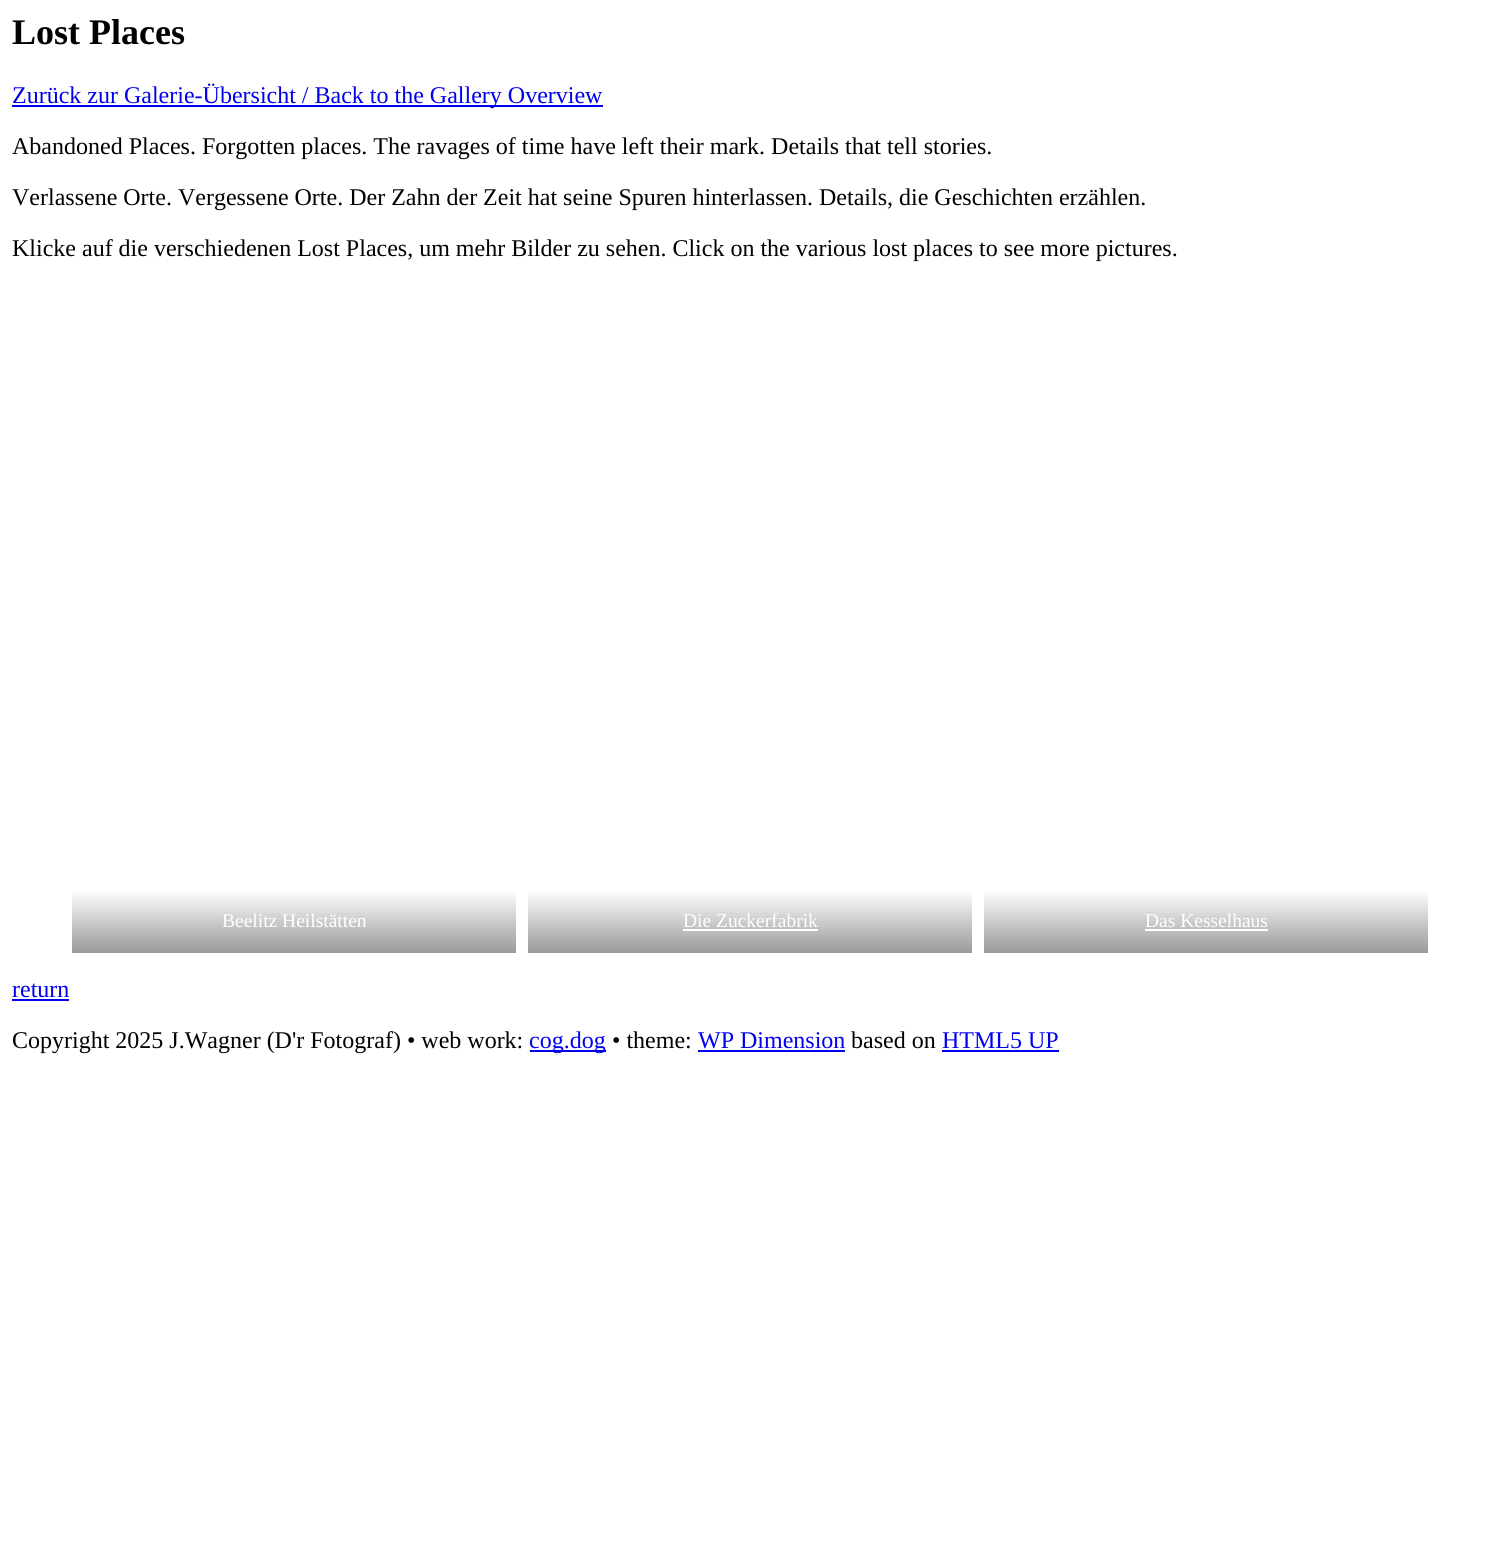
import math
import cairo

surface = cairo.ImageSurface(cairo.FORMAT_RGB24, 1499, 1544)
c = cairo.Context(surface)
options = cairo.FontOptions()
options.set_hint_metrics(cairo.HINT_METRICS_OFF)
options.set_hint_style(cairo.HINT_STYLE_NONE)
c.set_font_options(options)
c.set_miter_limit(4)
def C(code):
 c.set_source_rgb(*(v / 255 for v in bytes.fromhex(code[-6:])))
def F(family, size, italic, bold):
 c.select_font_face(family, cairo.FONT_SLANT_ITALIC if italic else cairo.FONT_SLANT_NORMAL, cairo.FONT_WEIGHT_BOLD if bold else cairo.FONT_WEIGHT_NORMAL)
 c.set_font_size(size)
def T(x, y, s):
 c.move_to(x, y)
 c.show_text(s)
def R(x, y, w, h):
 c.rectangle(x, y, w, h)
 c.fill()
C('ffffff')
c.paint()
F('Liberation Serif',36,0,1)
C('000000')
T(12,44,'Lost Places')
C('0000ee')
R(12,105,591,2)
F('Liberation Serif',24,0,0)
T(12,103,'Zurück zur Galerie-Übersicht / Back to the Gallery Overview')
C('000000')
T(12,154,'Abandoned Places. Forgotten places. The ravages of time have left their mark. Details that tell stories.')
T(12,205,'Verlassene Orte. Vergessene Orte. Der Zahn der Zeit hat seine Spuren hinterlassen. Details, die Geschichten erzählen.')
T(12,256,'Klicke auf die verschiedenen Lost Places, um mehr Bilder zu sehen. Click on the various lost places to see more pictures.')
gradient = cairo.LinearGradient(294,953,294,890)
gradient.add_color_stop_rgba(0,0.6,0.6,0.6,1)
gradient.add_color_stop_rgba(1,1,1,1,1)
c.set_source(gradient)
R(72,892,444,61)
F('Liberation Serif',19.5,0,0)
C('ffffff')
T(222,927,'Beelitz Heilstätten')
gradient = cairo.LinearGradient(750,953,750,890)
gradient.add_color_stop_rgba(0,0.6,0.6,0.6,1)
gradient.add_color_stop_rgba(1,1,1,1,1)
c.set_source(gradient)
R(528,892,444,61)
C('ffffff')
T(683,927,'Die Zuckerfabrik')
R(683,929,135,2)
gradient = cairo.LinearGradient(1206,953,1206,890)
gradient.add_color_stop_rgba(0,0.6,0.6,0.6,1)
gradient.add_color_stop_rgba(1,1,1,1,1)
c.set_source(gradient)
R(984,892,444,61)
C('ffffff')
T(1145,927,'Das Kesselhaus')
R(1145,929,123,2)
F('Liberation Serif',24,0,0)
C('0000ee')
T(12,997,'return')
R(12,999,57,2)
C('000000')
T(12,1048,'Copyright 2025 J.Wagner (D\'r Fotograf) • web work:')
C('0000ee')
R(530,1050,76,2)
T(529,1048,'cog.dog')
C('000000')
T(612,1048,'• theme:')
C('0000ee')
T(698,1048,'WP Dimension')
R(698,1050,147,2)
C('000000')
T(851,1048,'based on')
C('0000ee')
T(942,1048,'HTML5 UP')
R(942,1050,117,2)
surface.write_to_png('o.png')
